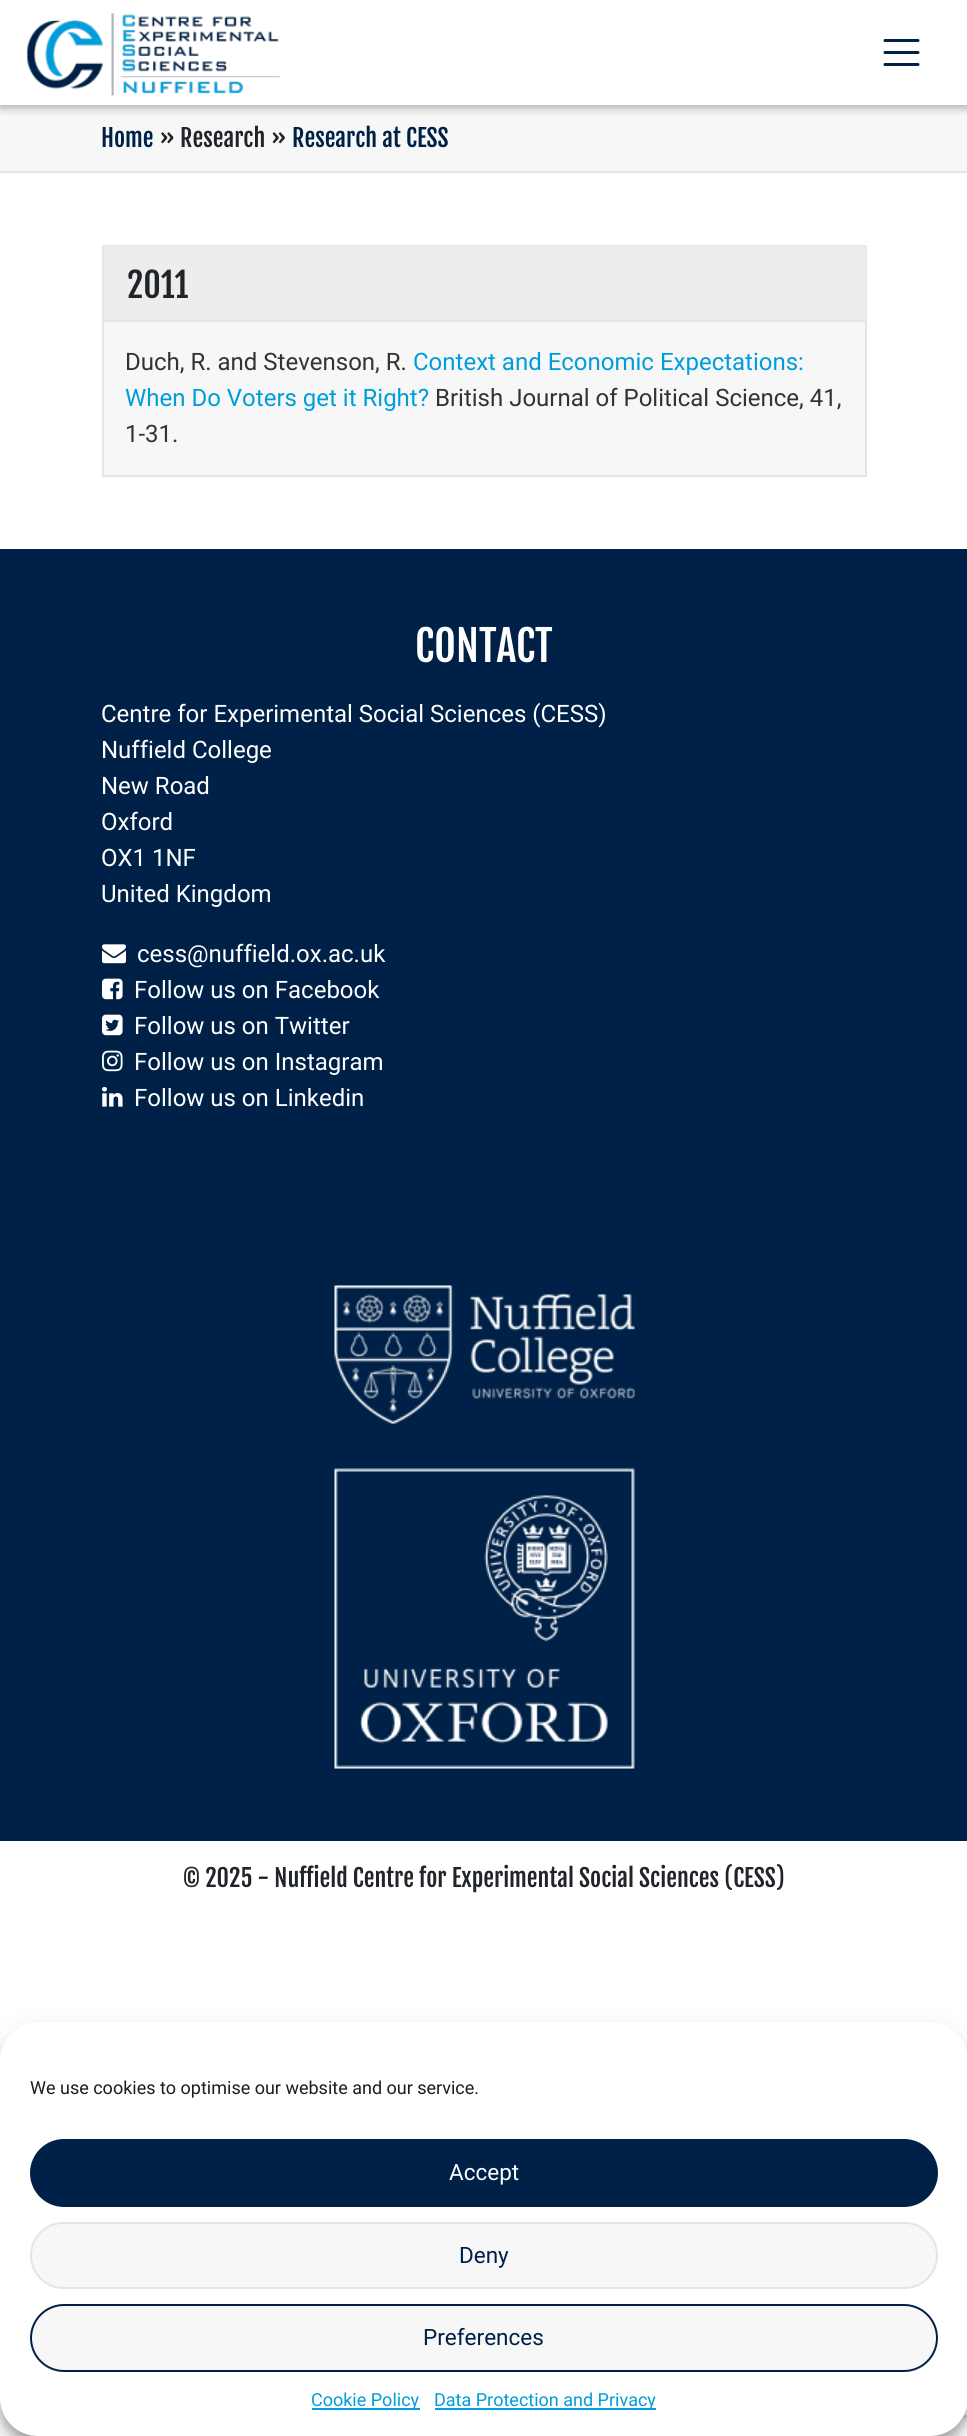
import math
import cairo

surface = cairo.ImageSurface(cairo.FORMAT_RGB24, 967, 2436)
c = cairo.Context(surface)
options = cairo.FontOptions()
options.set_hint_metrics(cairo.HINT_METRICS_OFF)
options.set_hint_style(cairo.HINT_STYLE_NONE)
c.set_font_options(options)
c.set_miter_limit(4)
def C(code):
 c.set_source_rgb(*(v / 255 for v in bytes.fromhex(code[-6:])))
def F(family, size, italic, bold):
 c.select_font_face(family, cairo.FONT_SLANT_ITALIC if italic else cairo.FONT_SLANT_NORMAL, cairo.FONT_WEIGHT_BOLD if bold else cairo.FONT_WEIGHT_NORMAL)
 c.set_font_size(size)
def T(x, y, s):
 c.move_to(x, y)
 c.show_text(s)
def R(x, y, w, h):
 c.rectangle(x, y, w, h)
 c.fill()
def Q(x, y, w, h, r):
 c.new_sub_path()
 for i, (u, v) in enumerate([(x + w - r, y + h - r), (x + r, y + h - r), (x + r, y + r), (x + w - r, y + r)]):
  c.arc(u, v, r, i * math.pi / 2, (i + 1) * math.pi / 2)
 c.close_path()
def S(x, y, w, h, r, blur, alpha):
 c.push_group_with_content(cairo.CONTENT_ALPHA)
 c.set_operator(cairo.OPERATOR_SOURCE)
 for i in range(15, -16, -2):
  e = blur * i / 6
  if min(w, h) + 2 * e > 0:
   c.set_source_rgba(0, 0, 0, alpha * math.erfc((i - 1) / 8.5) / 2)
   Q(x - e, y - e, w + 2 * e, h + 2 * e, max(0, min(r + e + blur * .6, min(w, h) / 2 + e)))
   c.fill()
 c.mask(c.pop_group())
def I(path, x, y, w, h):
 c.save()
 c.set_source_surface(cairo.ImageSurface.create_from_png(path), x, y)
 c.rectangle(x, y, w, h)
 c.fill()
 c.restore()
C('ffffff')
c.paint()
C('f7f7f7')
R(0,105,967,66)
c.save()
c.rectangle(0,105,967,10)
c.clip()
C('000000')
S(0,3,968,105,0,4.5,.3)
c.restore()
I('1.png',26,13,254,83)
c.new_path()
c.move_to(885,40.5)
c.line_to(918,40.5)
c.move_to(885,52.5)
c.line_to(918,52.5)
c.move_to(885,64.5)
c.line_to(918,64.5)
C('002147')
c.set_line_width(3)
c.set_line_cap(cairo.LINE_CAP_ROUND)
c.stroke()
C('e5e5e5')
R(0,171,967,2)
F('Fjalla One',24,0,0)
C('002147')
T(101,147,'Home')
C('212529')
T(159,147,'» Research »')
C('002147')
T(292,147,'Research at CESS')
C('f7f7f7')
R(104,322,761,153)
c.rectangle(103,246,763,230)
C('e5e5e5')
c.set_line_width(2)
c.set_line_cap(cairo.LINE_CAP_BUTT)
c.stroke()
C('ededed')
R(104,246,762,74)
C('e5e5e5')
R(104,320,762,2)
F('Fjalla One',34,0,0)
C('212529')
T(127,298,'2011')
F('Roboto',24,0,0)
C('333333')
T(125,370,'Duch, R. and Stevenson, R.')
C('009dda')
T(413,370,'Context and Economic Expectations:')
T(125,406,'When Do Voters get it Right?')
C('333333')
T(435,406,'British Journal of Political Science, 41,')
T(125,442,'1-31.')
C('002147')
R(0,549,967,1292)
F('Fjalla One',42,0,0)
C('ffffff')
T(415,662,'CONTACT')
F('Roboto',24,0,0)
T(101,722,'Centre for Experimental Social Sciences (CESS)')
T(101,758,'Nuffield College')
T(101,794,'New Road')
T(101,830,'Oxford')
T(101,866,'OX1 1NF')
T(101,902,'United Kingdom')
I('2.png',102,944,24,20)
T(137,962,'cess@nuffield.ox.ac.uk')
I('3.png',102,978,21,22)
T(134,998,'Follow us on Facebook')
I('4.png',102,1014,21,22)
T(134,1034,'Follow us on Twitter')
I('5.png',102,1050,21,22)
T(134,1070,'Follow us on Instagram')
I('6.png',102,1086,21,21)
T(134,1106,'Follow us on Linkedin')
I('7.png',334,1285,301,139)
I('8.png',334,1468,301,301)
F('Fjalla One',24,0,0)
C('212529')
T(183,1887,'© 2025 - Nuffield Centre for Experimental Social Sciences (CESS)')
C('000000')
S(0,2031,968,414,38,4.5,.23)
S(0,2037,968,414,38,15,.19)
c.save()
c.rectangle(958,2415,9,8)
c.clip()
C('808080')
S(863,2325,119,90,3,4,1)
c.restore()
C('ffffff')
Q(0,2022,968,414,38)
c.fill()
F('Roboto',18,0,0)
C('191e23')
T(30,2094,'We use cookies to optimise our website and our service.')
C('002147')
Q(31,2140,906,66,33)
c.fill_preserve()
c.stroke()
F('Roboto',22.5,0,0)
C('ffffff')
T(449,2180,'Accept')
C('f7f7f7')
Q(31,2223,906,65,32.5)
c.fill_preserve()
C('e5e5e5')
c.stroke()
C('002147')
T(459,2263,'Deny')
C('f7f7f7')
Q(31,2305,906,66,33)
c.fill_preserve()
C('002147')
c.stroke()
T(423,2345,'Preferences')
C('009dda')
R(312,2408,108,2)
F('Roboto',18,0,0)
T(311,2406,'Cookie Policy')
R(435,2408,221,2)
T(434,2406,'Data Protection and Privacy')
surface.write_to_png('o.png')
